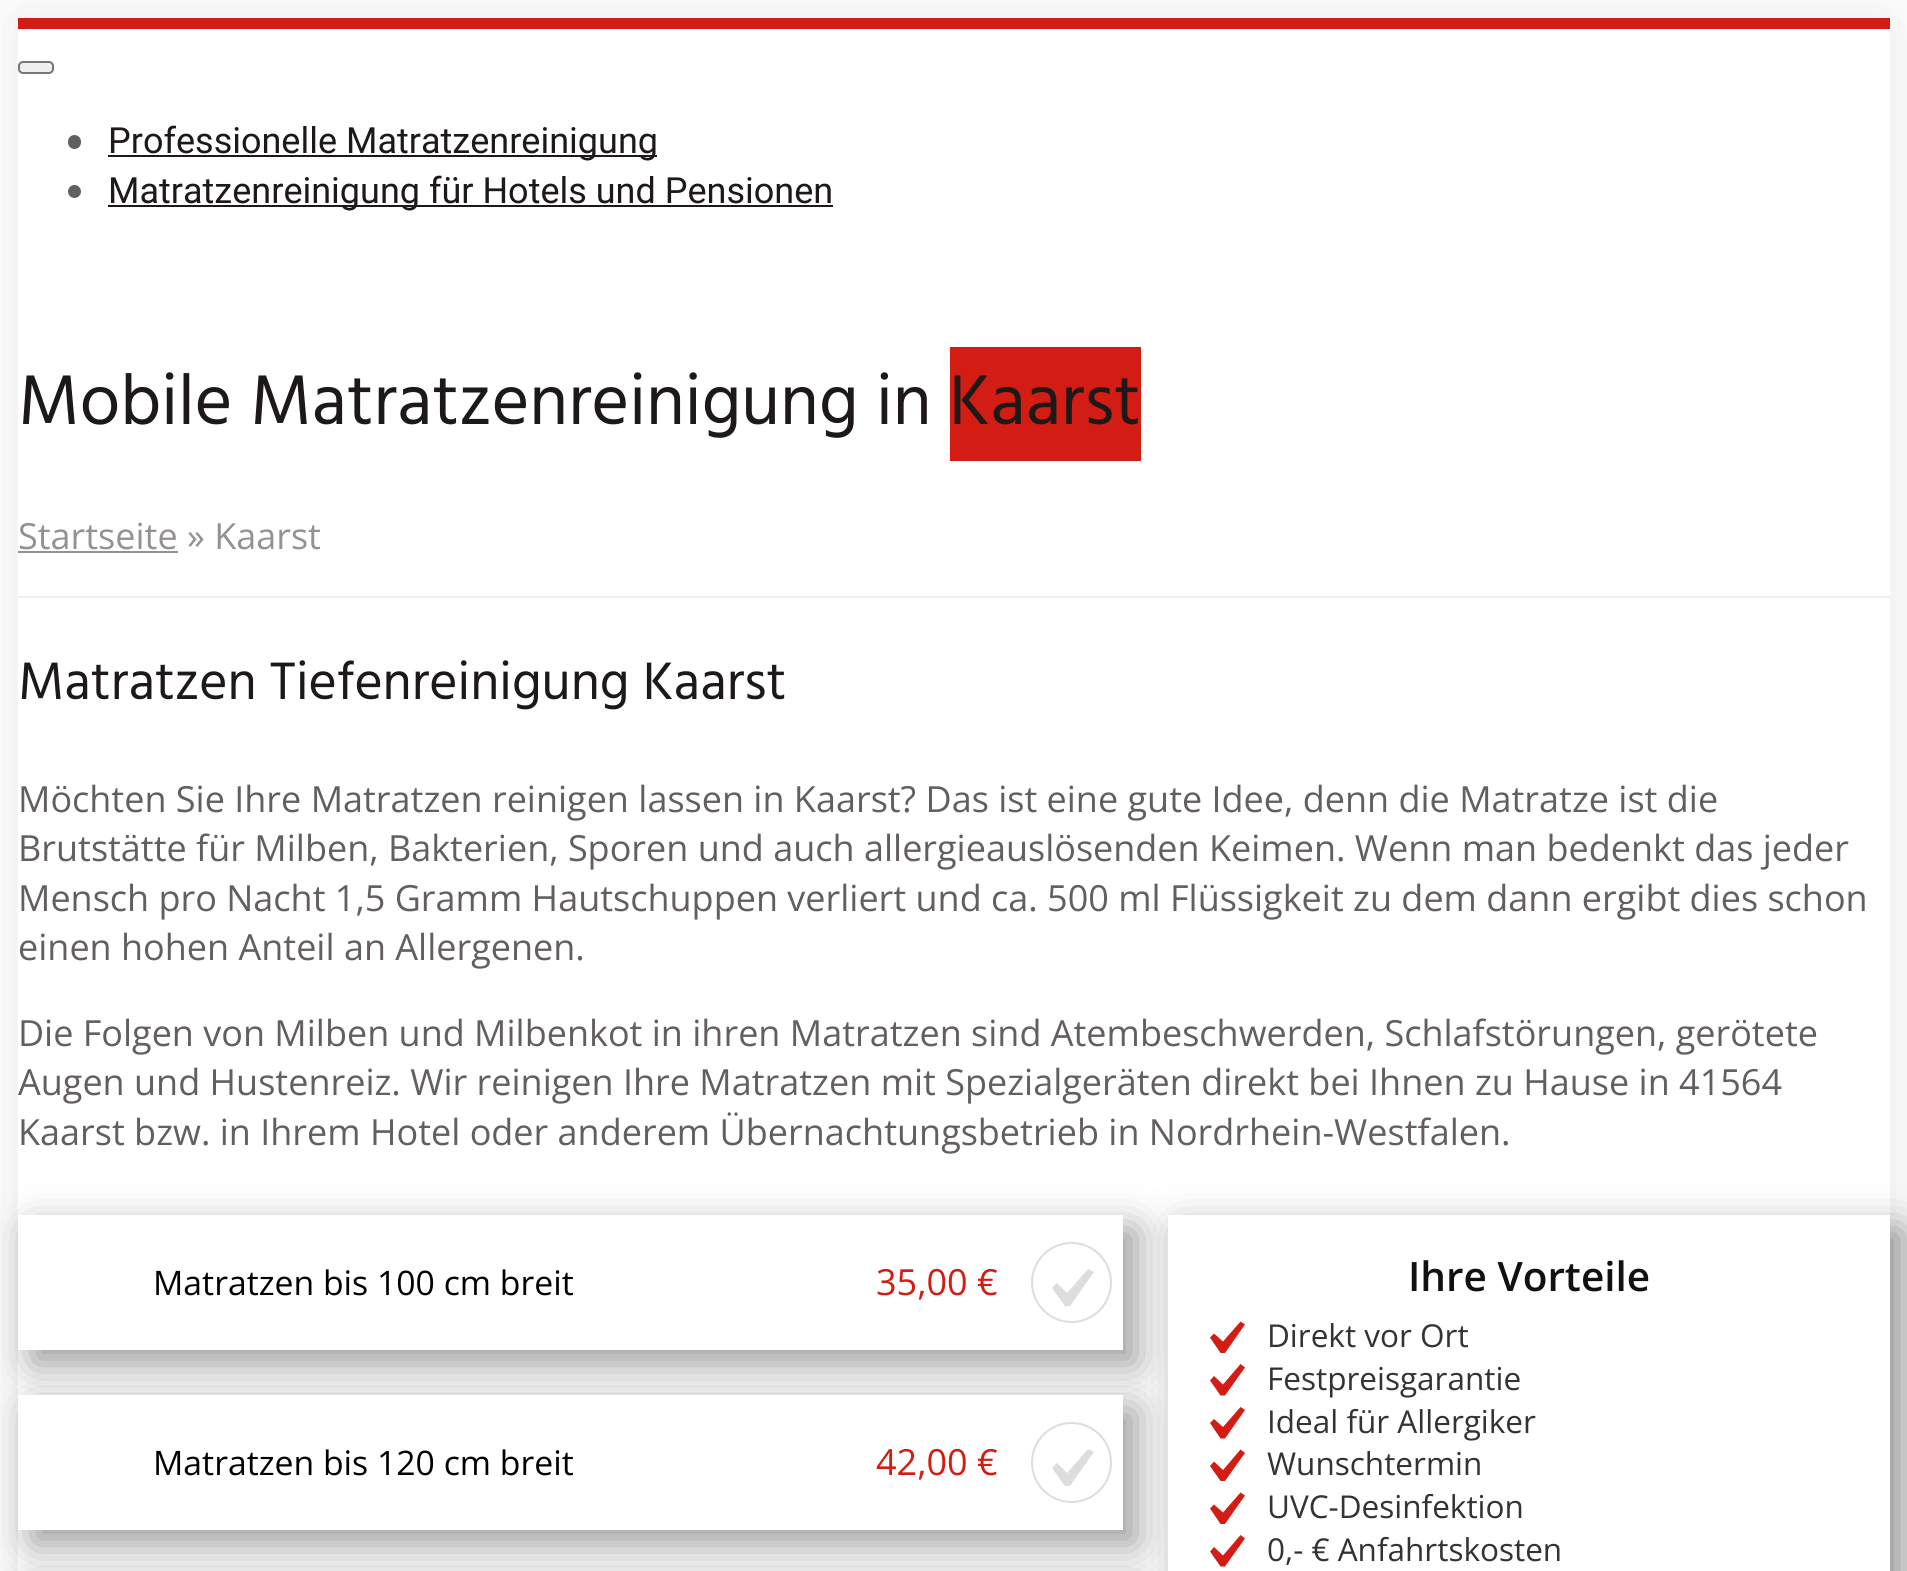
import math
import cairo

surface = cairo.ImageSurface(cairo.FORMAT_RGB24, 1907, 1571)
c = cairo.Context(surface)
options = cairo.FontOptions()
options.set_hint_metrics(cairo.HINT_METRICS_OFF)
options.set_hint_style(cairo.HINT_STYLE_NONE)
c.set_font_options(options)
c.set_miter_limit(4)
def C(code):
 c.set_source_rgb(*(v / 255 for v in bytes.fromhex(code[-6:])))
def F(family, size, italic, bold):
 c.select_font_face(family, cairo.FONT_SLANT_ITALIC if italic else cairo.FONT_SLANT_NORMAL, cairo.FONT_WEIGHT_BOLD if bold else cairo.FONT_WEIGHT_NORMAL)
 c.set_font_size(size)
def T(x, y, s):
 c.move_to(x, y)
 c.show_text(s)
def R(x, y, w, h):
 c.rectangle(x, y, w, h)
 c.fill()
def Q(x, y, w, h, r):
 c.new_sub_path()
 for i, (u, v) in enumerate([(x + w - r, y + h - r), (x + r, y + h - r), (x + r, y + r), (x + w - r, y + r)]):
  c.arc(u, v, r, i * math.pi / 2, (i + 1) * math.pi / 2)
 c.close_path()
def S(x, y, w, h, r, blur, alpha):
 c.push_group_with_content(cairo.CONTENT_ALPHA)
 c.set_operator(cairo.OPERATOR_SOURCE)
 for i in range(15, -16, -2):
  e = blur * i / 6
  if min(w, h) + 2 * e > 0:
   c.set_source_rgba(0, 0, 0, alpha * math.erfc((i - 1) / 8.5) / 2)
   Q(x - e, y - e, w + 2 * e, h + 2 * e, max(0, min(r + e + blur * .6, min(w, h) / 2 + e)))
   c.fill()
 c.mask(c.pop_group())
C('ffffff')
c.paint()
c.save()
c.set_fill_rule(cairo.FILL_RULE_EVEN_ODD)
c.new_path()
c.move_to(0,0)
c.line_to(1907,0)
c.line_to(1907,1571)
c.line_to(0,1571)
c.close_path()
c.move_to(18,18)
c.line_to(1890,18)
c.line_to(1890,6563)
c.line_to(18,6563)
c.close_path()
c.clip()
C('1e1919')
S(18,18,1872,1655,0,34,.1)
c.restore()
C('d31c13')
R(18,18,1872,11)
C('efefef')
Q(19,62,34,11,4)
c.fill_preserve()
C('767676')
c.stroke()
C('645f5f')
Q(68,135,13,14,6.5)
c.fill()
C('1e1919')
R(108,155,549,2)
F('Roboto',36,0,0)
T(108,153,'Professionelle Matratzenreinigung')
C('645f5f')
c.new_path()
c.arc(74.5,191.5,6.5,0,2 * math.pi)
c.fill()
C('1e1919')
R(108,205,725,2)
T(108,203,'Matratzenreinigung für Hotels und Pensionen')
F('Hind',72,0,0)
T(18,424,'Mobile Matratzenreinigung in')
C('d31c13')
R(950,347,191,114)
C('1e1919')
T(949,424,'Kaarst')
C('efefef')
R(18,596,1872,2)
F('Open Sans',36,0,0)
C('969191')
T(18,549,'Startseite » Kaarst')
R(18,551,160,2)
F('Hind',54,0,0)
C('1e1919')
T(18,699,'Matratzen Tiefenreinigung Kaarst')
F('Open Sans',36,0,0)
C('645f5f')
T(18,812,'Möchten Sie Ihre Matratzen reinigen lassen in Kaarst? Das ist eine gute Idee, denn die Matratze ist die')
T(18,861,'Brutstätte für Milben, Bakterien, Sporen und auch allergieauslösenden Keimen. Wenn man bedenkt das jeder')
T(18,911,'Mensch pro Nacht 1,5 Gramm Hautschuppen verliert und ca. 500 ml Flüssigkeit zu dem dann ergibt dies schon')
T(18,960,'einen hohen Anteil an Allergenen.')
T(18,1046,'Die Folgen von Milben und Milbenkot in ihren Matratzen sind Atembeschwerden, Schlafstörungen, gerötete')
T(18,1095,'Augen und Hustenreiz. Wir reinigen Ihre Matratzen mit Spezialgeräten direkt bei Ihnen zu Hause in 41564')
T(18,1145,'Kaarst bzw. in Ihrem Hotel oder anderem Übernachtungsbetrieb in Nordrhein-Westfalen.')
C('000000')
S(32,1229,1104,135,0,20,.4)
C('ffffff')
R(18,1215,1105,135)
F('Open Sans',33.75,0,0)
C('000000')
T(153,1295,'Matratzen bis 100 cm breit')
F('Open Sans',36,0,0)
C('d31c13')
T(876,1295,'35,00 €')
c.new_path()
c.arc(1071.5,1282.5,39.5,0,2 * math.pi)
C('dddddd')
c.stroke()
c.new_path()
c.move_to(1088,1269)
c.line_to(1094,1272)
c.line_to(1070,1306)
c.line_to(1065,1306)
c.line_to(1052,1288)
c.line_to(1057,1283)
c.line_to(1067,1293)
c.close_path()
c.fill()
C('000000')
S(32,1409,1104,135,0,20,.4)
C('ffffff')
R(18,1395,1105,135)
F('Open Sans',33.75,0,0)
C('000000')
T(153,1475,'Matratzen bis 120 cm breit')
F('Open Sans',36,0,0)
C('d31c13')
T(876,1475,'42,00 €')
c.new_path()
c.arc(1071.5,1462.5,39.5,0,2 * math.pi)
C('dddddd')
c.stroke()
c.new_path()
c.move_to(1088,1449)
c.line_to(1094,1452)
c.line_to(1070,1486)
c.line_to(1065,1486)
c.line_to(1052,1468)
c.line_to(1057,1463)
c.line_to(1067,1473)
c.close_path()
c.fill()
C('000000')
S(32,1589,1104,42,0,20,.4)
S(1181,1229,723,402,0,20,.4)
C('ffffff')
R(1168,1215,722,356)
F('Open Sans SemiBold',40.5,0,0)
C('111111')
T(1408,1291,'Ihre Vorteile')
C('d31c13')
c.new_path()
c.move_to(1240.5,1321.5)
c.line_to(1245,1324.5)
c.line_to(1225,1353)
c.line_to(1220.5,1353)
c.line_to(1210,1337.5)
c.line_to(1214,1333.5)
c.line_to(1223,1341.5)
c.close_path()
c.fill()
F('Open Sans',31.5,0,0)
C('333333')
T(1267,1347,'Direkt vor Ort')
C('d31c13')
c.new_path()
c.move_to(1240.5,1364)
c.line_to(1245,1367.5)
c.line_to(1225,1395.5)
c.line_to(1220.5,1395.5)
c.line_to(1210,1380.5)
c.line_to(1214,1376)
c.line_to(1223,1384.5)
c.close_path()
c.fill()
C('333333')
T(1267,1390,'Festpreisgarantie')
C('d31c13')
c.new_path()
c.move_to(1240.5,1407)
c.line_to(1245,1410)
c.line_to(1225,1438.5)
c.line_to(1220.5,1438.5)
c.line_to(1210,1423)
c.line_to(1214,1419)
c.line_to(1223,1427)
c.close_path()
c.fill()
C('333333')
T(1267,1433,'Ideal für Allergiker')
C('d31c13')
c.new_path()
c.move_to(1240.5,1449.5)
c.line_to(1245,1453)
c.line_to(1225,1481)
c.line_to(1220.5,1481)
c.line_to(1210,1466)
c.line_to(1214,1461.5)
c.line_to(1223,1470)
c.close_path()
c.fill()
C('333333')
T(1267,1475,'Wunschtermin')
C('d31c13')
c.new_path()
c.move_to(1240.5,1492.5)
c.line_to(1245,1495.5)
c.line_to(1225,1524)
c.line_to(1220.5,1524)
c.line_to(1210,1508.5)
c.line_to(1214,1504.5)
c.line_to(1223,1512.5)
c.close_path()
c.fill()
C('333333')
T(1267,1518,'UVC-Desinfektion')
C('d31c13')
c.new_path()
c.move_to(1240.5,1535)
c.line_to(1245,1538.5)
c.line_to(1225,1566.5)
c.line_to(1220.5,1566.5)
c.line_to(1210,1551.5)
c.line_to(1214,1547)
c.line_to(1223,1555.5)
c.close_path()
c.fill()
C('333333')
T(1267,1561,'0,- € Anfahrtskosten')
surface.write_to_png('o.png')
